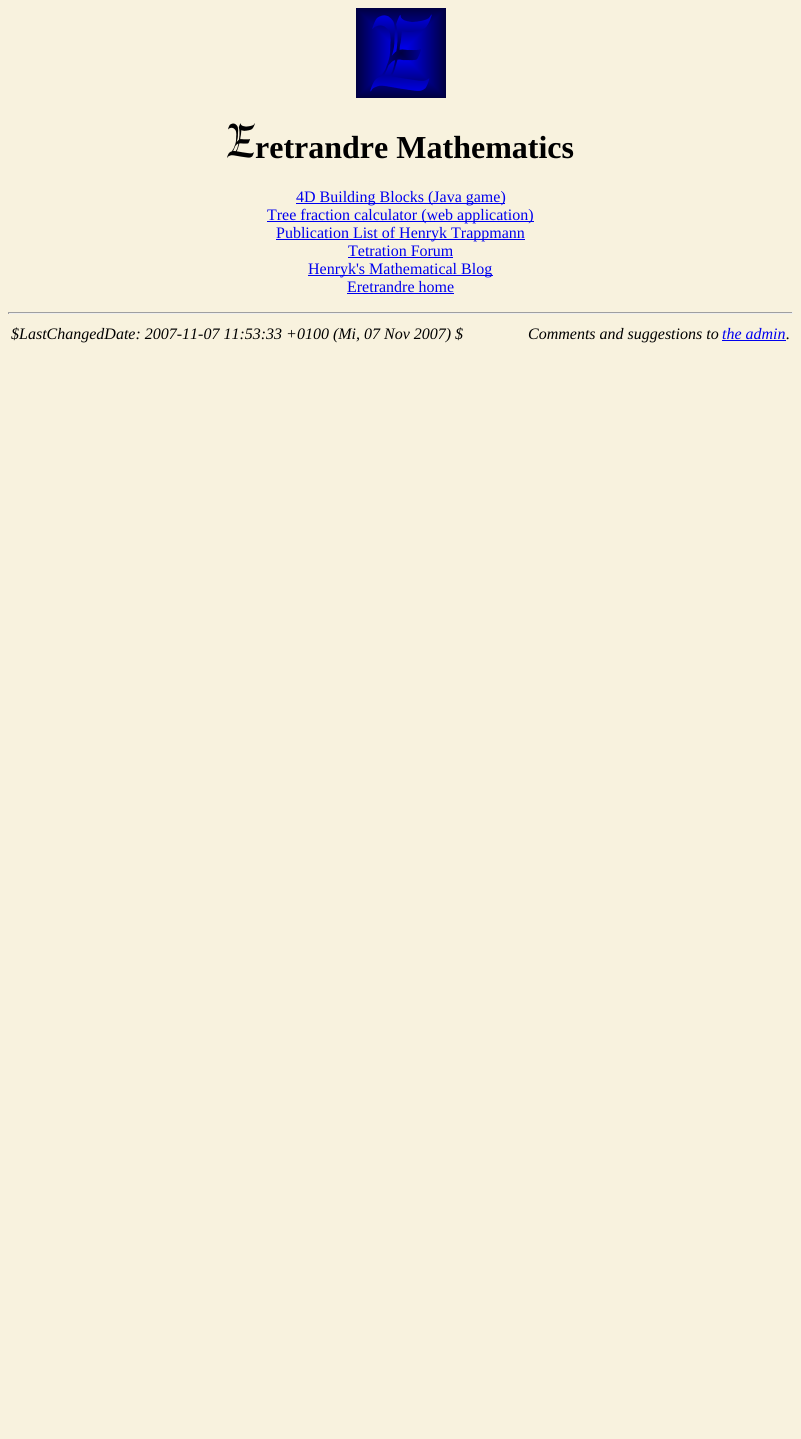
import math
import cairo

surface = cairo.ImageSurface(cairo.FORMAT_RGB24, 801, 1439)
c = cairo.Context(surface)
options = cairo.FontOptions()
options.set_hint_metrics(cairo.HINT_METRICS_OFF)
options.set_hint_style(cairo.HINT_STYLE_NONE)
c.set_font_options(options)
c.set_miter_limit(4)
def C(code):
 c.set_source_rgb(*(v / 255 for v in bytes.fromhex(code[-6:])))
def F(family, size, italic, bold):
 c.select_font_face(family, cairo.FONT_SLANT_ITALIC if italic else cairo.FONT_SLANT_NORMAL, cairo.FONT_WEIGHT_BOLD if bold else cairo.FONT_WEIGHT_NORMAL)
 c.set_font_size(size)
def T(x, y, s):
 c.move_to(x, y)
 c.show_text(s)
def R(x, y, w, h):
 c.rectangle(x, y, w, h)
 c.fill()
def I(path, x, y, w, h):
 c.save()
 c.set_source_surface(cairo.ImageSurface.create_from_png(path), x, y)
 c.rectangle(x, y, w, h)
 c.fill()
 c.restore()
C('f8f2de')
c.paint()
I('1.png',356,8,90,90)
I('2.png',227,123,28,35)
F('Liberation Serif',32,0,1)
C('000000')
T(255,158,'retrandre Mathematics')
C('0000ee')
R(296,203,209,1)
F('Liberation Serif',16,0,0)
T(296,202,'4D Building Blocks (Java game)')
R(267,221,267,1)
T(267,220,'Tree fraction calculator (web application)')
R(276,239,249,1)
T(276,238,'Publication List of Henryk Trappmann')
T(348,256,'Tetration Forum')
R(348,257,105,1)
R(308,275,185,1)
T(308,274,'Henryk\'s Mathematical Blog')
T(347,292,'Eretrandre home')
R(347,293,107,1)
C('9f9f9f')
R(8,312,785,1)
C('eeeeee')
R(792,312,1,2)
R(8,313,785,1)
C('9f9f9f')
R(8,312,1,2)
F('Liberation Serif',16,1,0)
C('000000')
T(11,339,'$LastChangedDate: 2007-11-07 11:53:33 +0100 (Mi, 07 Nov 2007) $')
T(528,339,'Comments and suggestions to')
C('0000ee')
T(722,339,'the admin')
C('000000')
T(786,339,'.')
C('0000ee')
R(722,340,64,1)
surface.write_to_png('o.png')
